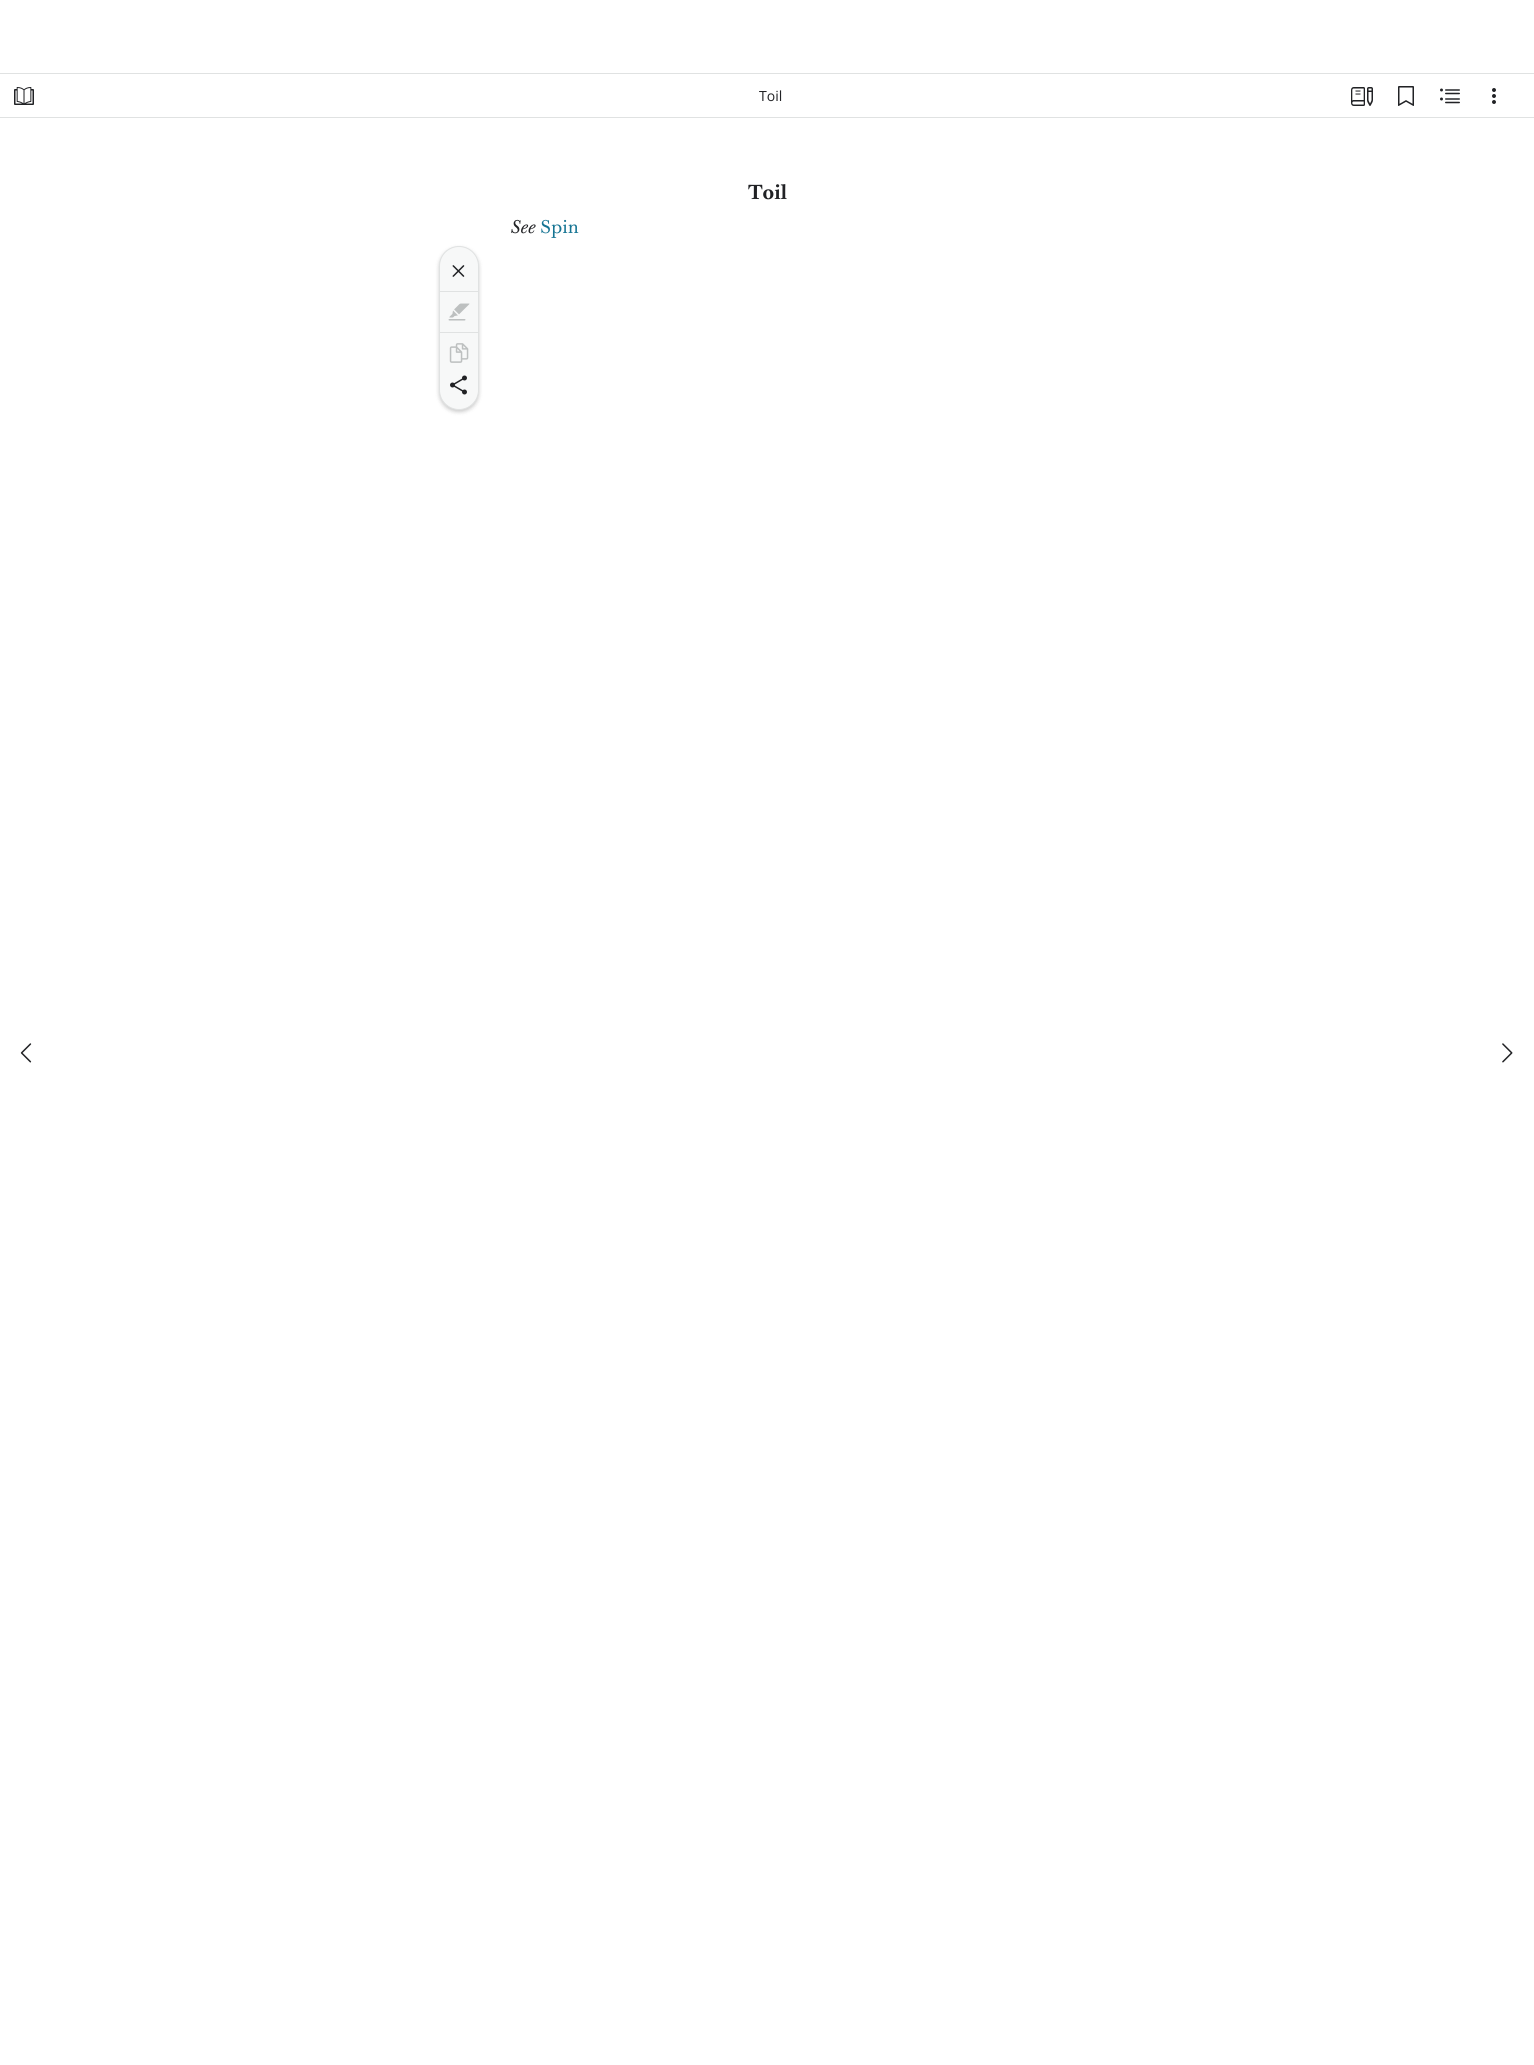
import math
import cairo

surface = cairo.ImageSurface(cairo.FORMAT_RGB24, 1534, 2065)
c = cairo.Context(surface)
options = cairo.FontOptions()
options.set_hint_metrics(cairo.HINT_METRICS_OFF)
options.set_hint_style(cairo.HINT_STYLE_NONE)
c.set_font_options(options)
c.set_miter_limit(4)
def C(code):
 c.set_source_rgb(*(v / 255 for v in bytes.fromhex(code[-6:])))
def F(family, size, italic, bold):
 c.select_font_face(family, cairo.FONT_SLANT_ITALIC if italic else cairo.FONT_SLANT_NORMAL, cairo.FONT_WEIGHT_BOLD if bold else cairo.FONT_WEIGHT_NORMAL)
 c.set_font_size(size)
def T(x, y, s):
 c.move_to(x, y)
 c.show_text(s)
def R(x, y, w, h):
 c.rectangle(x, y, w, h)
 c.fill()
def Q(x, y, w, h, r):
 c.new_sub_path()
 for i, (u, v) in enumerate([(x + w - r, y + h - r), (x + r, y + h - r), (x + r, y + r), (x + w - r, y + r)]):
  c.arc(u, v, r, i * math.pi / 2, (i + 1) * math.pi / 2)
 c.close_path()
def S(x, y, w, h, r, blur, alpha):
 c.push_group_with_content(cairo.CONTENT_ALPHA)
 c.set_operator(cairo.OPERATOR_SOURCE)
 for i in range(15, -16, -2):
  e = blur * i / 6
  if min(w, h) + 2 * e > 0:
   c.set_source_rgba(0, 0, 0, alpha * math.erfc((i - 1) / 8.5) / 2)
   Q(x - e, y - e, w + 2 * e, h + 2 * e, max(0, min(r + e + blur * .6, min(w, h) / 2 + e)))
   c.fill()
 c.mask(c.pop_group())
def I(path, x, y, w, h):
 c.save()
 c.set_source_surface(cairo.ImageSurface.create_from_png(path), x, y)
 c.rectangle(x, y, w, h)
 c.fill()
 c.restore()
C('ffffff')
c.paint()
C('e0e2e2')
R(0,73,1534,1)
R(0,117,1534,1)
I('1.png',14,87,20,18)
F('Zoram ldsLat',14,0,0)
C('212225')
T(759,101,'Toil')
I('2.png',1351,87,22,19)
I('3.png',1398,86,16,20)
I('4.png',1440,88,20,16)
I('5.png',1492,88,4,16)
F('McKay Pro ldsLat',20,0,1)
T(748,199,'Toil')
F('McKay Pro ldsLat',18,1,0)
T(511,233,'See')
F('McKay Pro ldsLat',18,0,0)
C('157493')
T(540,233,'Spin')
C('000000')
S(439,248,40,164,20,2,.2)
C('f7f8f8')
Q(439.5,246.5,39,163,19.5)
c.fill_preserve()
C('e0e2e2')
c.set_line_width(1)
c.stroke()
I('6.png',452,265,13,12)
R(440,291,38,1)
I('7.png',448,303,22,18)
R(440,332,38,1)
I('8.png',449,343,20,20)
I('9.png',450,375,17,20)
I('10.png',20,1043,12,20)
I('11.png',1502,1043,11,20)
surface.write_to_png('o.png')
